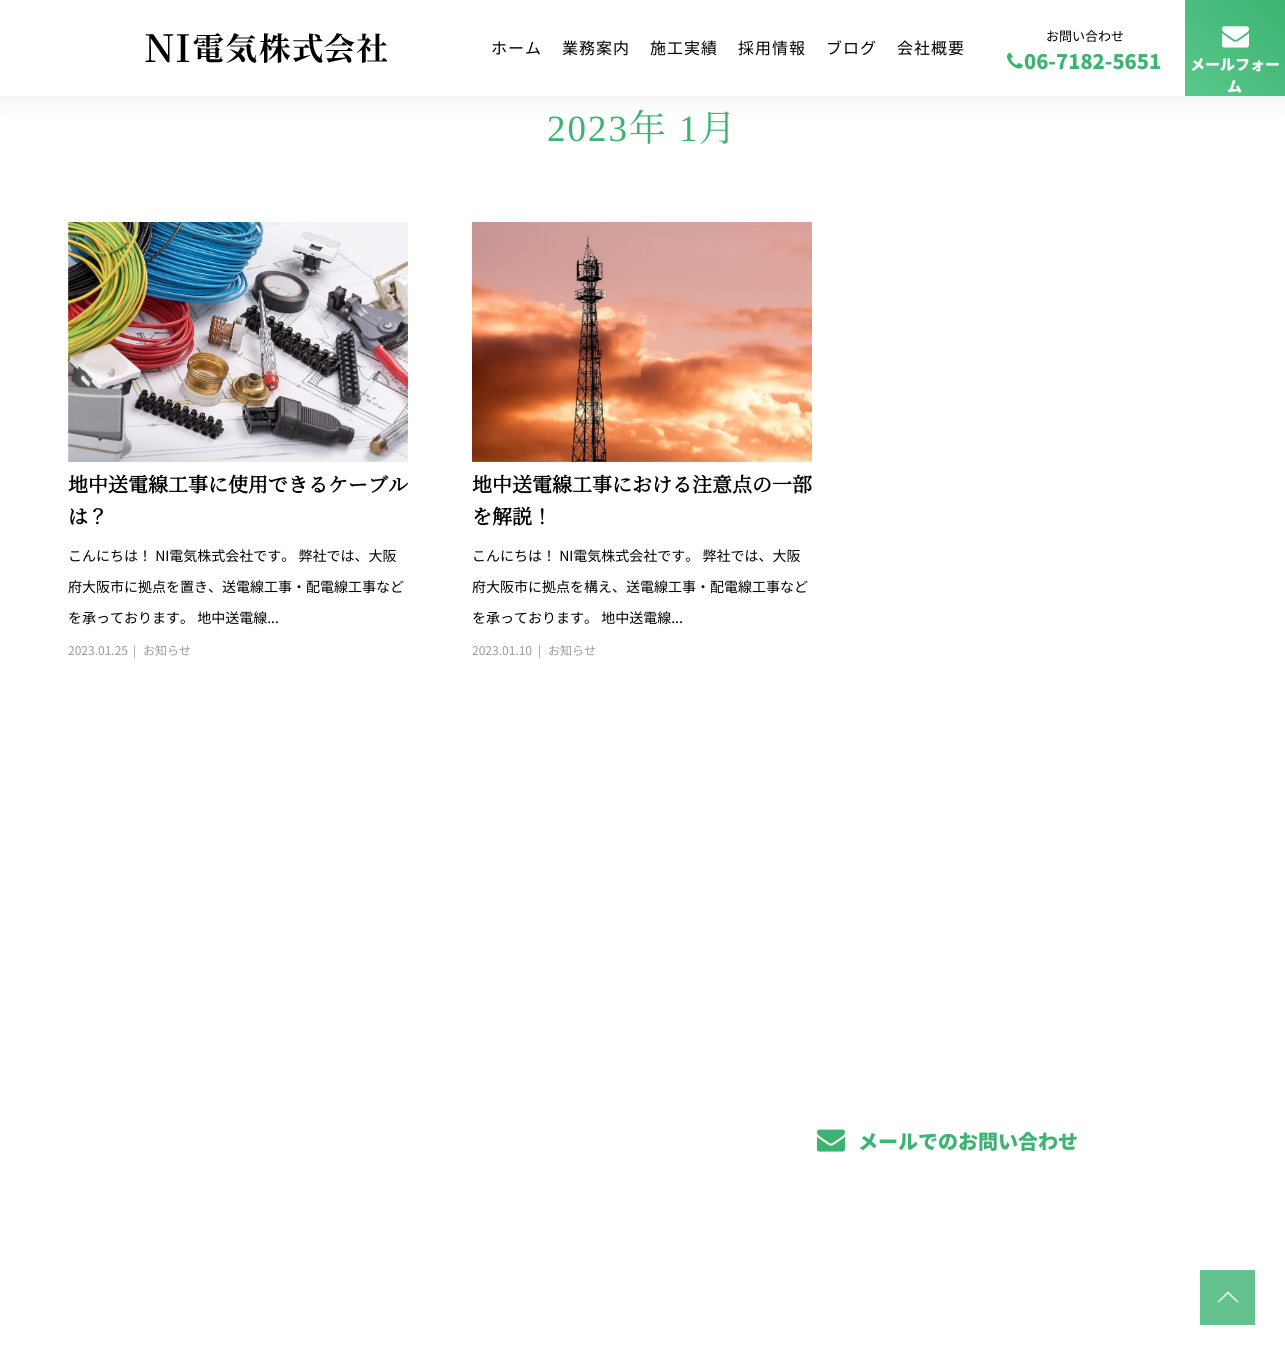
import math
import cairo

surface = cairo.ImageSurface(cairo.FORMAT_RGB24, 1285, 1355)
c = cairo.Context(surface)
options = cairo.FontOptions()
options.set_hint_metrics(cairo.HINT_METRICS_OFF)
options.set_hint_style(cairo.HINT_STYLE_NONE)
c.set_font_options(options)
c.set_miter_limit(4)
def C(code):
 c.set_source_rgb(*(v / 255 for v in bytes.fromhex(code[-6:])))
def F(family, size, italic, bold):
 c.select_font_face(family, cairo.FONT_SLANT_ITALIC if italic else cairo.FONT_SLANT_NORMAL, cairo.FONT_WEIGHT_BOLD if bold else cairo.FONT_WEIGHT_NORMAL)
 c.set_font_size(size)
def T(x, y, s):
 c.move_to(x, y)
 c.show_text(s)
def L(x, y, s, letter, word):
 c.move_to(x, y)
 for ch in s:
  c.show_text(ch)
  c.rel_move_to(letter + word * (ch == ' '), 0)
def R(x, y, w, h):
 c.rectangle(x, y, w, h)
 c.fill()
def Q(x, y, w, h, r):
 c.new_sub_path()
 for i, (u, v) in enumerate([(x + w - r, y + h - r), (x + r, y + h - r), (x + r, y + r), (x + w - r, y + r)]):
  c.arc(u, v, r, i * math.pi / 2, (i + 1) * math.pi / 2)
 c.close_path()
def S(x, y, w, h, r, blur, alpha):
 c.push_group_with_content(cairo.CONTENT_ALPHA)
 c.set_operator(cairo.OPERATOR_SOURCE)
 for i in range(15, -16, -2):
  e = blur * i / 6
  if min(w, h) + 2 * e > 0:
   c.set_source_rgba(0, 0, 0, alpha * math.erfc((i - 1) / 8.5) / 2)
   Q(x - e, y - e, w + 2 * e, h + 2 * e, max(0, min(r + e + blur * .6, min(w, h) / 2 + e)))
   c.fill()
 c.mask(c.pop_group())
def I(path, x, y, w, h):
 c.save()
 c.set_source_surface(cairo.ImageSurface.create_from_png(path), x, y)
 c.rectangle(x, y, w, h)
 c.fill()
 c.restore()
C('ffffff')
c.paint()
C('000000')
S(0,-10,1285,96,0,15,.2)
C('ffffff')
R(0,0,1185,96)
I('1.png',145,32,243,31)
F('Noto Sans JP Thin',16,0,0)
C('000000')
L(491,54,'ホーム',1,0)
L(562,54,'業務案内',1,0)
L(650,54,'施工実績',1,0)
L(738,54,'採用情報',1,0)
L(826,54,'ブログ',1,0)
L(897,54,'会社概要',1,0)
F('Noto Sans JP Thin',13,0,0)
T(1046,41,'お問い合わせ')
I('2.png',1007,52,16,17)
F('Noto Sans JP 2 Thin',20,0,0)
C('3cb371')
T(1024,69,'06-7182-5651')
gradient = cairo.LinearGradient(1187,98,1283,-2)
gradient.add_color_stop_rgba(0,0.353,0.784,0.545,1)
gradient.add_color_stop_rgba(1,0.235,0.702,0.443,1)
c.set_source(gradient)
R(1185,0,100,96)
I('3.png',1222,26,27,22)
F('Noto Sans JP 2 Thin',15,0,0)
C('ffffff')
T(1190,70,'メールフォー')
T(1227,92,'ム')
F('Liberation Serif',37,0,0)
C('3cb371')
L(547,141,'2023',2,0)
F('Noto Serif JP ExtraLight',37,0,0)
L(629,141,'年',2,0)
F('Liberation Serif',37,0,0)
L(679,141,'1',2,0)
F('Noto Serif JP ExtraLight',37,0,0)
L(699,141,'月',2,0)
I('4.png',68,222,340,240)
F('Noto Serif JP',20,0,1)
C('000000')
T(68,492,'地中送電線工事に使用できるケーブル')
T(68,524,'は？')
F('Noto Sans JP Thin',14,0,0)
T(68,561,'こんにちは！ NI電気株式会社です。 弊社では、大阪')
T(68,592,'府大阪市に拠点を置き、送電線工事・配電線工事など')
T(68,623,'を承っております。 地中送電線...')
F('Noto Sans JP Thin',12,0,0)
C('999999')
T(68,655,'2023.01.25')
T(133,655,'|')
T(143,655,'お知らせ')
I('5.png',472,222,340,240)
F('Noto Serif JP',20,0,1)
C('000000')
T(472,492,'地中送電線工事における注意点の一部')
T(472,524,'を解説！')
F('Noto Sans JP Thin',14,0,0)
T(472,561,'こんにちは！ NI電気株式会社です。 弊社では、大阪')
T(472,592,'府大阪市に拠点を構え、送電線工事・配電線工事など')
T(472,623,'を承っております。 地中送電線...')
F('Noto Sans JP Thin',12,0,0)
C('999999')
T(472,655,'2023.01.10')
T(538,655,'|')
T(548,655,'お知らせ')
I('6.png',817,1129,28,23)
F('Noto Sans JP 2 Thin',20,0,0)
C('3cb371')
T(858,1149,'メールでのお問い合わせ')
C('63c28d')
R(1200,1270,55,55)
I('7.png',1217,1291,22,12)
surface.write_to_png('o.png')
